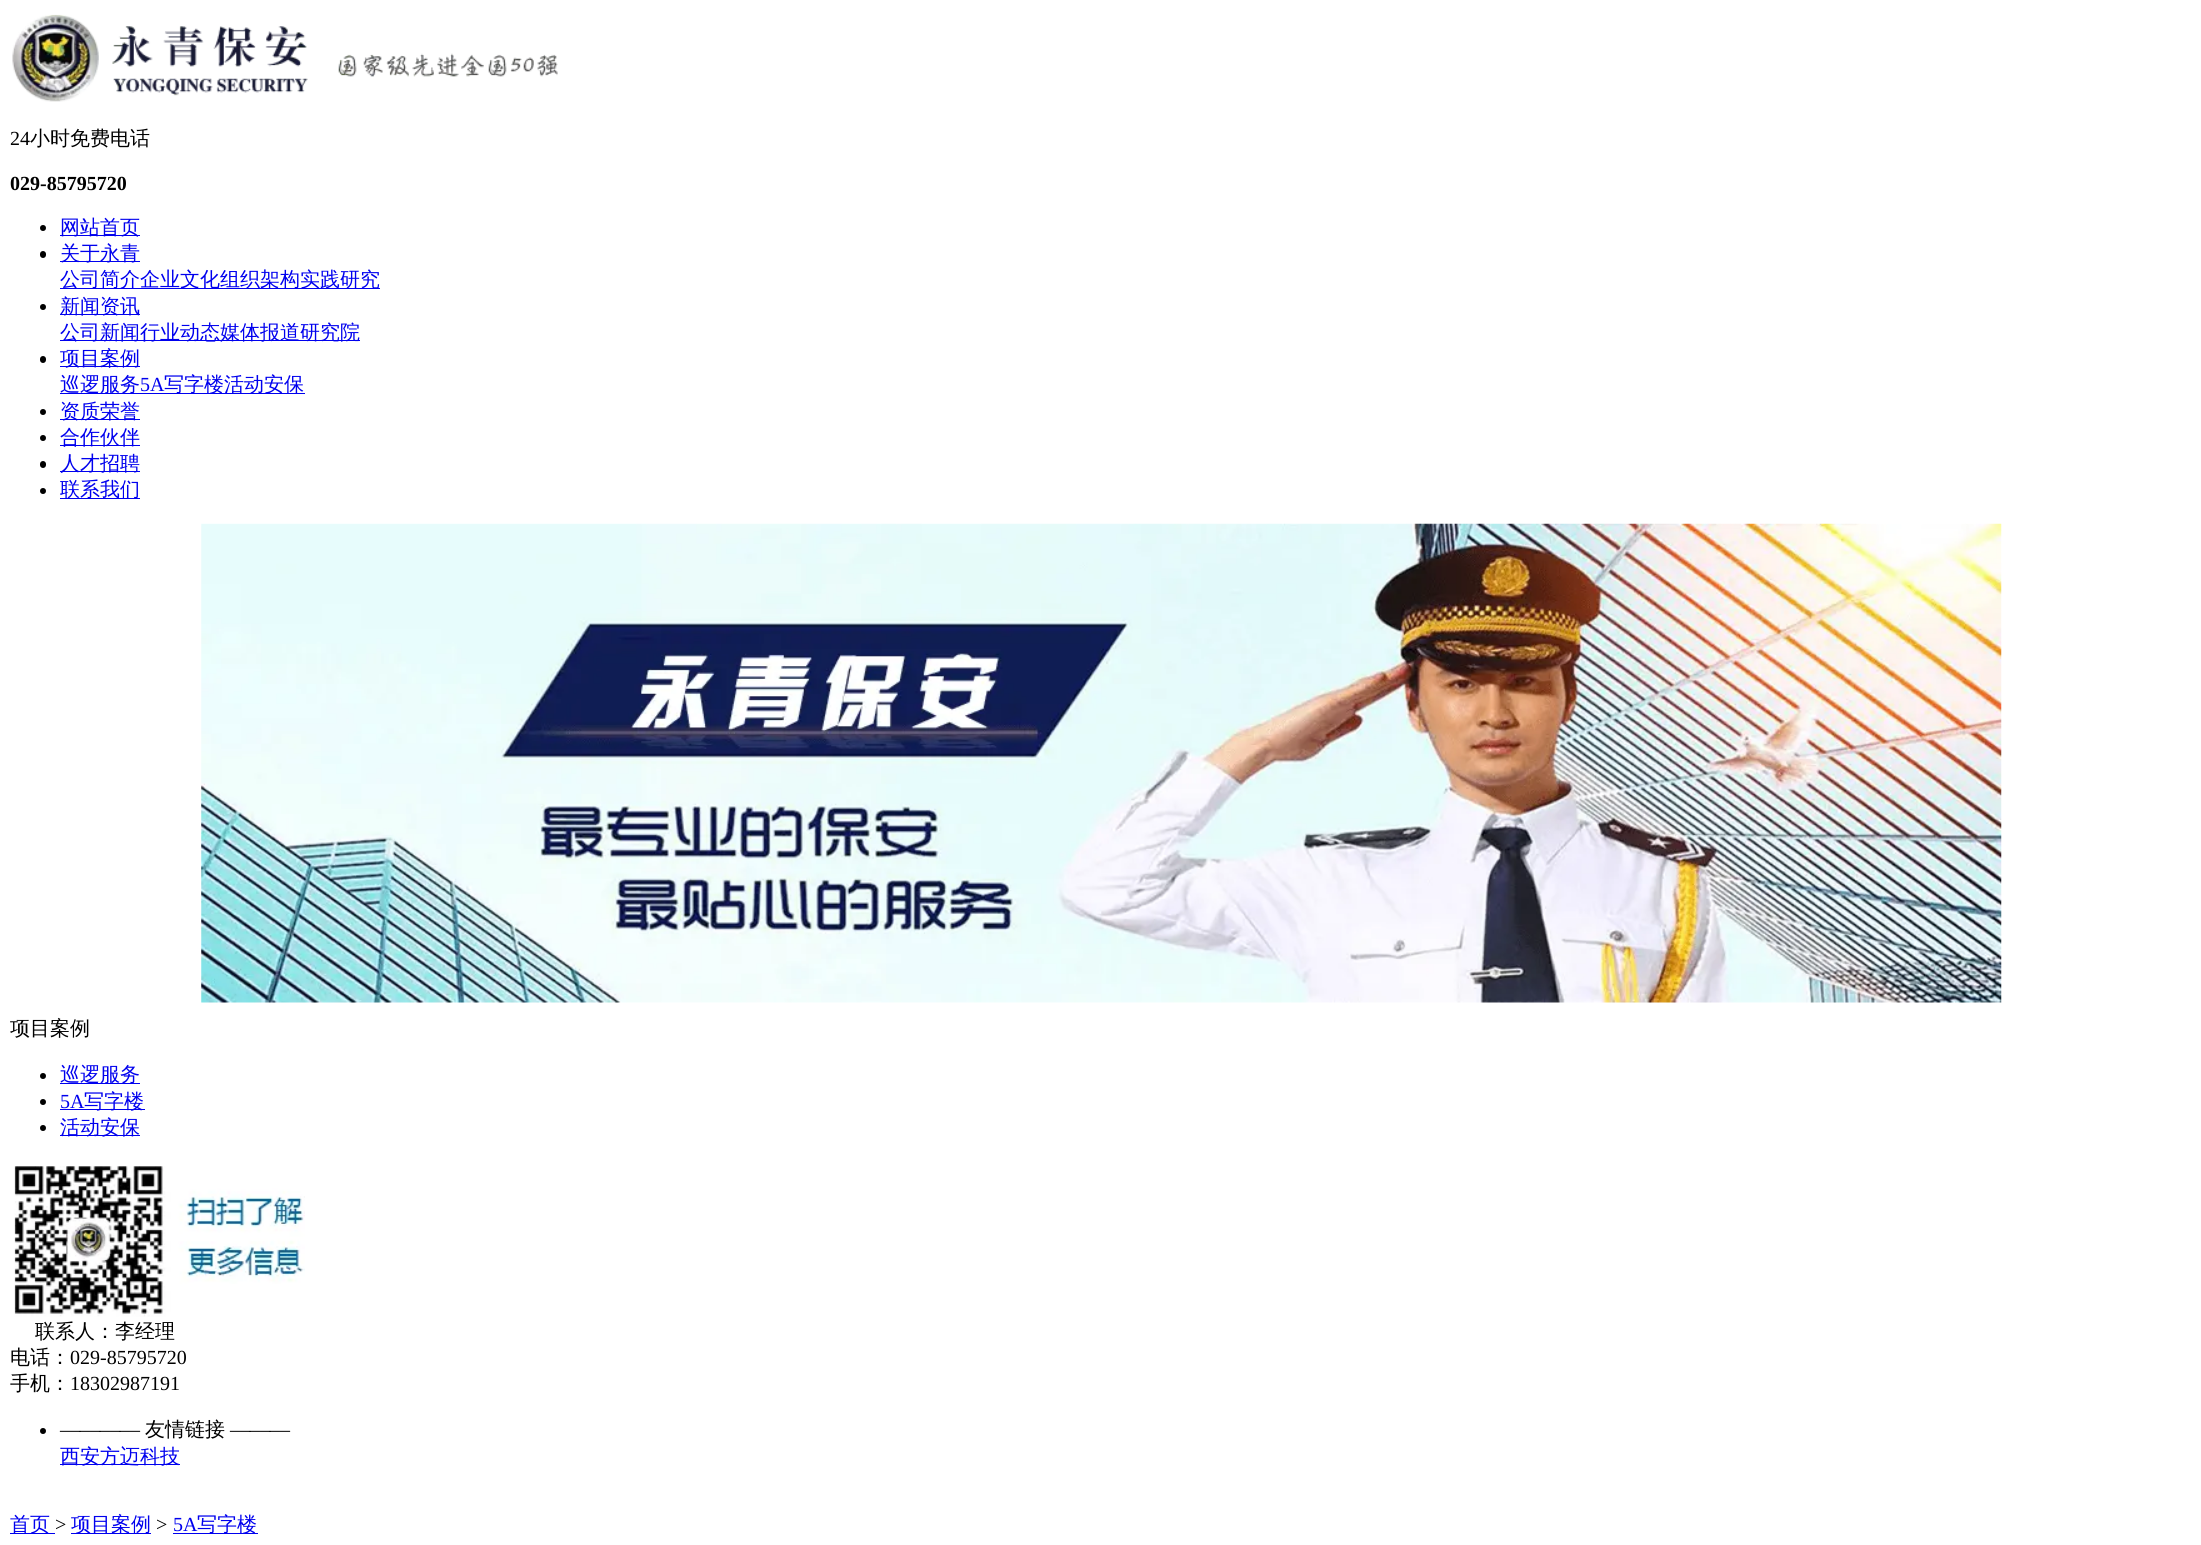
import math
import cairo

surface = cairo.ImageSurface(cairo.FORMAT_RGB24, 2201, 1545)
c = cairo.Context(surface)
options = cairo.FontOptions()
options.set_hint_metrics(cairo.HINT_METRICS_OFF)
options.set_hint_style(cairo.HINT_STYLE_NONE)
c.set_font_options(options)
c.set_miter_limit(4)
def C(code):
 c.set_source_rgb(*(v / 255 for v in bytes.fromhex(code[-6:])))
def F(family, size, italic, bold):
 c.select_font_face(family, cairo.FONT_SLANT_ITALIC if italic else cairo.FONT_SLANT_NORMAL, cairo.FONT_WEIGHT_BOLD if bold else cairo.FONT_WEIGHT_NORMAL)
 c.set_font_size(size)
def T(x, y, s):
 c.move_to(x, y)
 c.show_text(s)
def R(x, y, w, h):
 c.rectangle(x, y, w, h)
 c.fill()
def Q(x, y, w, h, r):
 c.new_sub_path()
 for i, (u, v) in enumerate([(x + w - r, y + h - r), (x + r, y + h - r), (x + r, y + r), (x + w - r, y + r)]):
  c.arc(u, v, r, i * math.pi / 2, (i + 1) * math.pi / 2)
 c.close_path()
def I(path, x, y, w, h):
 c.save()
 c.set_source_surface(cairo.ImageSurface.create_from_png(path), x, y)
 c.rectangle(x, y, w, h)
 c.fill()
 c.restore()
C('ffffff')
c.paint()
I('1.png',12,14,546,88)
F('Liberation Serif',20,0,0)
C('000000')
T(10,145,'24')
F('WenQuanYi Zen Hei Medium',20,0,0)
T(30,145,'小时免费电话')
F('Liberation Serif',20,0,1)
T(10,190,'029-85795720')
c.new_path()
c.arc(43,228,3,0,2 * math.pi)
c.fill()
C('0000ee')
R(60,235,80,1)
F('WenQuanYi Zen Hei Medium',20,0,0)
T(60,234,'网站首页')
C('000000')
Q(40,251,6,7,3)
c.fill()
C('0000ee')
R(60,261,80,1)
T(60,260,'关于永青')
R(60,288,320,1)
T(60,286,'公司简介企业文化组织架构实践研究')
C('000000')
c.new_path()
c.arc(43,307,3,0,2 * math.pi)
c.fill()
C('0000ee')
R(60,314,80,1)
T(60,313,'新闻资讯')
R(60,340,300,1)
T(60,339,'公司新闻行业动态媒体报道研究院')
C('000000')
Q(40,356,6,7,3)
c.fill()
C('0000ee')
R(60,366,80,1)
T(60,365,'项目案例')
R(60,393,245,1)
T(60,391,'巡逻服务')
F('Liberation Serif',20,0,0)
T(140,391,'5A')
F('WenQuanYi Zen Hei Medium',20,0,0)
T(164,391,'写字楼活动安保')
C('000000')
c.new_path()
c.arc(43,412,3,0,2 * math.pi)
c.fill()
C('0000ee')
R(60,419,80,1)
T(60,418,'资质荣誉')
C('000000')
c.new_path()
c.arc(43,438,3,0,2 * math.pi)
c.fill()
C('0000ee')
R(60,445,80,1)
T(60,444,'合作伙伴')
C('000000')
Q(40,461,6,7,3)
c.fill()
C('0000ee')
R(60,471,80,1)
T(60,470,'人才招聘')
C('000000')
c.new_path()
c.arc(43,491,3,0,2 * math.pi)
c.fill()
C('0000ee')
R(60,498,80,1)
T(60,496,'联系我们')
I('2.png',201,523,1801,480)
C('000000')
T(10,1035,'项目案例')
c.new_path()
c.arc(43,1076,3,0,2 * math.pi)
c.fill()
C('0000ee')
R(60,1083,80,1)
T(60,1081,'巡逻服务')
C('000000')
c.new_path()
c.arc(43,1102,3,0,2 * math.pi)
c.fill()
F('Liberation Serif',20,0,0)
C('0000ee')
T(60,1108,'5A')
R(60,1109,85,1)
F('WenQuanYi Zen Hei Medium',20,0,0)
T(84,1108,'写字楼')
C('000000')
c.new_path()
c.arc(43,1128,3,0,2 * math.pi)
c.fill()
C('0000ee')
R(60,1135,80,1)
T(60,1134,'活动安保')
I('3.png',14,1166,291,151)
C('000000')
T(35,1338,'联系人：李经理')
T(10,1364,'电话：')
F('Liberation Serif',20,0,0)
T(70,1364,'029-85795720')
F('WenQuanYi Zen Hei Medium',20,0,0)
T(10,1390,'手机：')
F('Liberation Serif',20,0,0)
T(70,1390,'18302987191')
c.new_path()
c.arc(43,1431,3,0,2 * math.pi)
c.fill()
T(60,1436,'————')
F('WenQuanYi Zen Hei Medium',20,0,0)
T(145,1436,'友情链接')
F('Liberation Serif',20,0,0)
T(230,1436,'———')
C('0000ee')
R(60,1464,120,1)
F('WenQuanYi Zen Hei Medium',20,0,0)
T(60,1463,'西安方迈科技')
R(10,1533,45,1)
T(10,1531,'首页')
F('Liberation Serif',20,0,0)
C('000000')
T(55,1531,'>')
C('0000ee')
R(71,1533,80,1)
F('WenQuanYi Zen Hei Medium',20,0,0)
T(71,1531,'项目案例')
F('Liberation Serif',20,0,0)
C('000000')
T(156,1531,'>')
C('0000ee')
T(173,1531,'5A')
R(173,1533,85,1)
F('WenQuanYi Zen Hei Medium',20,0,0)
T(197,1531,'写字楼')
surface.write_to_png('o.png')
